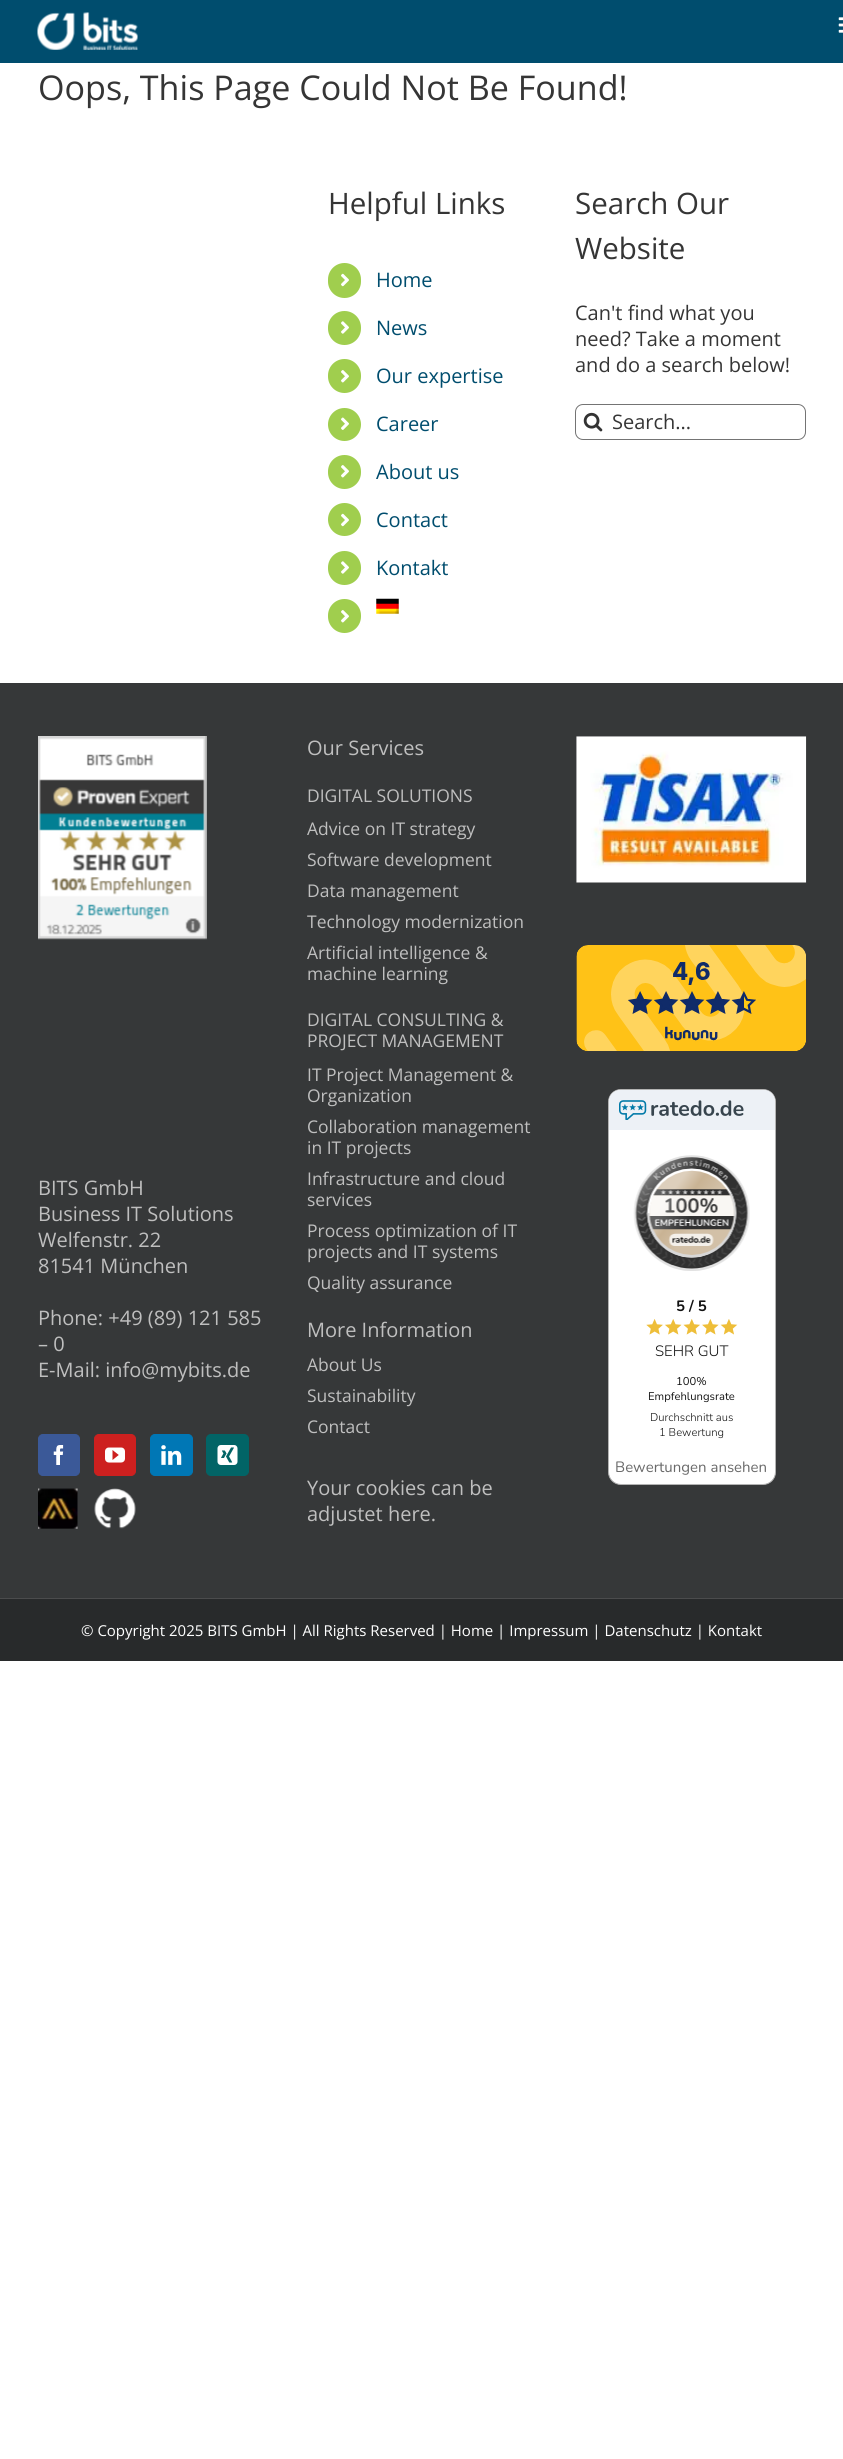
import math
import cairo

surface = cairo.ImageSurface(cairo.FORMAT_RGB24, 843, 2459)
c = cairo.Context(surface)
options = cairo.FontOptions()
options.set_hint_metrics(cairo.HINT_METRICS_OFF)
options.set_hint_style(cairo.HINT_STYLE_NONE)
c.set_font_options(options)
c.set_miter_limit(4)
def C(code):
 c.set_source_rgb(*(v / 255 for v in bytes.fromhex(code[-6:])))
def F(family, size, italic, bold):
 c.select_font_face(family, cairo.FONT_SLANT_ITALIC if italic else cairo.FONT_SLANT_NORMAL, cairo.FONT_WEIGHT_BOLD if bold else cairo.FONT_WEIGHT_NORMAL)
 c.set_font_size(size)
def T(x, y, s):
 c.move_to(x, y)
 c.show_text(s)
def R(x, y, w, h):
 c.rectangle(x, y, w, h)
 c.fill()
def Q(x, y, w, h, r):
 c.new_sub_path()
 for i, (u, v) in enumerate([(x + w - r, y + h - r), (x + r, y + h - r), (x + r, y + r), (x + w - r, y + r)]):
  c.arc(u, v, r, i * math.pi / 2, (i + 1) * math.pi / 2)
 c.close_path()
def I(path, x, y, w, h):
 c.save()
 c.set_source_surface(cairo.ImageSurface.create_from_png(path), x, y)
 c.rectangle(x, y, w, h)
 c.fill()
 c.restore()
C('ffffff')
c.paint()
C('004d6e')
R(0,0,843,63)
I('1.png',37,12,101,38)
I('2.png',838,17,5,16)
F('Open Sans',34.1,0,0)
C('353535')
T(38,100,'Oops, This Page Could Not Be Found!')
F('Open Sans',29.5,0,0)
T(328,214,'Helpful Links')
C('a0ce4e')
Q(328,263,33,35,16.5)
c.fill()
I('3.png',341,273,8,14)
F('Open Sans',20,0,0)
C('004d6e')
T(376,287,'Home')
C('a0ce4e')
Q(328,311,33,34,16.5)
c.fill()
I('4.png',341,321,8,13)
C('004d6e')
T(376,335,'News')
C('a0ce4e')
Q(328,359,33,34,16.5)
c.fill()
I('5.png',341,370,8,13)
C('004d6e')
T(376,383,'Our expertise')
C('a0ce4e')
c.new_path()
c.arc(344.5,424.5,16.5,0,2 * math.pi)
c.fill()
I('6.png',341,417,8,13)
C('004d6e')
T(376,431,'Career')
C('a0ce4e')
Q(328,455,33,34,16.5)
c.fill()
I('5.png',341,465,8,13)
C('004d6e')
T(376,479,'About us')
C('a0ce4e')
c.new_path()
c.arc(344.5,519.5,16.5,0,2 * math.pi)
c.fill()
I('3.png',341,513,8,14)
C('004d6e')
T(376,527,'Contact')
C('a0ce4e')
Q(328,551,33,34,16.5)
c.fill()
I('4.png',341,561,8,13)
C('004d6e')
T(376,575,'Kontakt')
C('a0ce4e')
Q(328,599,33,34,16.5)
c.fill()
I('5.png',341,610,8,13)
I('7.png',376,598,23,16)
F('Open Sans',29.5,0,0)
C('353535')
T(575,214,'Search Our')
T(575,259,'Website')
F('Open Sans',20,0,0)
T(575,320,'Can\'t find what you')
T(575,346,'need? Take a moment')
T(575,372,'and do a search below!')
Q(575.5,404.5,230,35,7.5)
C('747474')
c.set_line_width(1)
c.stroke()
I('8.png',583,412,20,20)
C('353535')
T(612,429,'Search...')
C('363839')
R(0,683,843,915)
I('9.png',38,736,169,204)
C('bfbfbf')
T(38,1195,'BITS GmbH')
T(38,1221,'Business IT Solutions')
T(38,1247,'Welfenstr. 22')
T(38,1273,'81541 München')
T(38,1325,'Phone: +49 (89) 121 585')
T(38,1351,'– 0')
T(38,1377,'E-Mail: info@mybits.de')
C('3b5998')
Q(38.5,1434.5,41,41,4.5)
c.fill_preserve()
c.stroke()
I('10.png',53,1445,11,20)
C('cd201f')
Q(94.5,1434.5,41,41,4.5)
c.fill_preserve()
c.stroke()
I('11.png',105,1447,20,16)
C('0077b5')
Q(150.5,1434.5,42,41,4.5)
c.fill_preserve()
c.stroke()
I('12.png',161,1445,21,20)
C('026466')
Q(206.5,1434.5,42,41,4.5)
c.fill_preserve()
c.stroke()
I('13.png',217,1445,21,20)
I('14.png',38,1488,40,41)
I('15.png',94,1488,42,41)
C('bfbfbf')
T(307,755,'Our Services')
F('Open Sans',17.5,0,0)
T(307,802,'DIGITAL SOLUTIONS')
T(307,835,'Advice on IT strategy')
T(307,866,'Software development')
T(307,897,'Data management')
T(307,928,'Technology modernization')
T(307,959,'Artificial intelligence &')
T(307,980,'machine learning')
T(307,1026,'DIGITAL CONSULTING &')
T(307,1047,'PROJECT MANAGEMENT')
T(307,1081,'IT Project Management &')
T(307,1102,'Organization')
T(307,1133,'Collaboration management')
T(307,1154,'in IT projects')
T(307,1185,'Infrastructure and cloud')
T(307,1206,'services')
T(307,1237,'Process optimization of IT')
T(307,1258,'projects and IT systems')
T(307,1289,'Quality assurance')
F('Open Sans',20,0,0)
T(307,1337,'More Information')
F('Open Sans',17.5,0,0)
T(307,1371,'About Us')
T(307,1402,'Sustainability')
T(307,1433,'Contact')
F('Open Sans',20,0,0)
T(307,1495,'Your cookies can be')
T(307,1521,'adjustet here.')
I('16.png',576,736,231,147)
I('17.png',576,945,230,106)
C('ffffff')
Q(608.5,1089.5,167,395,12.5)
c.fill_preserve()
C('b3b3b3')
c.stroke()
C('edf1f6')
c.new_path()
c.move_to(620,1090)
c.line_to(764,1090)
c.curve_to(770,1090,775,1095,775,1101)
c.line_to(775,1130)
c.line_to(609,1130)
c.line_to(609,1101)
c.curve_to(609,1095,614,1090,620,1090)
c.close_path()
c.fill()
I('18.png',619,1100,125,20)
I('19.png',633,1155,117,116)
F('Nunito',15,0,1)
C('121212')
T(676,1311,'5 / 5')
I('20.png',646,1319,92,16)
F('Nunito Light',15,0,0)
T(655,1356,'SEHR GUT')
F('Nunito',11.25,0,0)
T(676,1385,'100%')
T(648,1400,'Empfehlungsrate')
F('Nunito Light',11.25,0,0)
T(650,1421,'Durchschnitt aus')
T(659,1436,'1 Bewertung')
F('Nunito',15,0,0)
C('696969')
T(615,1472,'Bewertungen ansehen')
C('282a2b')
R(0,1599,843,62)
C('4b4c4d')
R(0,1598,843,1)
F('Open Sans',15,0,0)
C('ffffff')
T(81,1636,'© Copyright 2025 BITS GmbH | All Rights Reserved | Home | Impressum | Datenschutz | Kontakt')
surface.write_to_png('o.png')
